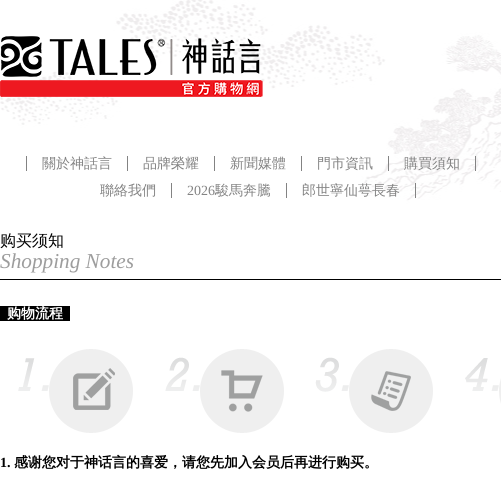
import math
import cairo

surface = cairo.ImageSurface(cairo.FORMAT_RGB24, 501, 486)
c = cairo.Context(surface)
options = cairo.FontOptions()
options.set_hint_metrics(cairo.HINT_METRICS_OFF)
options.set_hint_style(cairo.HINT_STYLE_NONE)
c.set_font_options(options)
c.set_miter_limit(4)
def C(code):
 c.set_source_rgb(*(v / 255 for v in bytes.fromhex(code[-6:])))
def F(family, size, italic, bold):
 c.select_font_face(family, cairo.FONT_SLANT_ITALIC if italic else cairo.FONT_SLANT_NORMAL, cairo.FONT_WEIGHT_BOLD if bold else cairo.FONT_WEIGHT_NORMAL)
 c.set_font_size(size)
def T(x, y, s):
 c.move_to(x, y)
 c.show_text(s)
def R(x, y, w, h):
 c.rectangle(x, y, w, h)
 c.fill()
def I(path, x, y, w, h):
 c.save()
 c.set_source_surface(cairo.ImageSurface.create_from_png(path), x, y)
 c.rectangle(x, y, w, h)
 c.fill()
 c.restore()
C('ffffff')
c.paint()
I('1.png',0,0,501,486)
I('2.png',0,36,263,61)
F('WenQuanYi Zen Hei Medium',14,0,0)
C('838383')
T(42,168,'關於神話言')
R(127,156,1,15)
R(26,156,1,15)
T(143,168,'品牌榮耀')
R(214,156,1,15)
T(230,168,'新聞媒體')
R(301,156,1,15)
T(317,168,'門市資訊')
R(388,156,1,15)
T(404,168,'購買須知')
R(475,156,1,15)
T(100,195,'聯絡我們')
R(171,183,1,15)
F('Liberation Serif',14,0,0)
T(187,195,'2026')
F('WenQuanYi Zen Hei Medium',14,0,0)
T(215,195,'駿馬奔騰')
R(286,183,1,15)
T(302,195,'郎世寧仙萼長春')
R(415,183,1,15)
C('000000')
R(0,279,501,1)
F('WenQuanYi Zen Hei Medium',16,0,0)
T(0,246,'购买须知')
F('Liberation Serif',21.25,1,0)
C('9d9d9d')
T(0,268,'Shopping Notes')
C('000000')
R(0,306,70,15)
F('WenQuanYi Zen Hei',14,0,1)
C('ffffff')
T(7,318,'购物流程')
I('3.png',18,349,483,84)
F('Liberation Serif',14,0,1)
C('000000')
T(0,467,'1.')
F('WenQuanYi Zen Hei',14,0,1)
T(14,467,'感谢您对于神话言的喜爱，请您先加入会员后再进行购买。')
surface.write_to_png('o.png')
